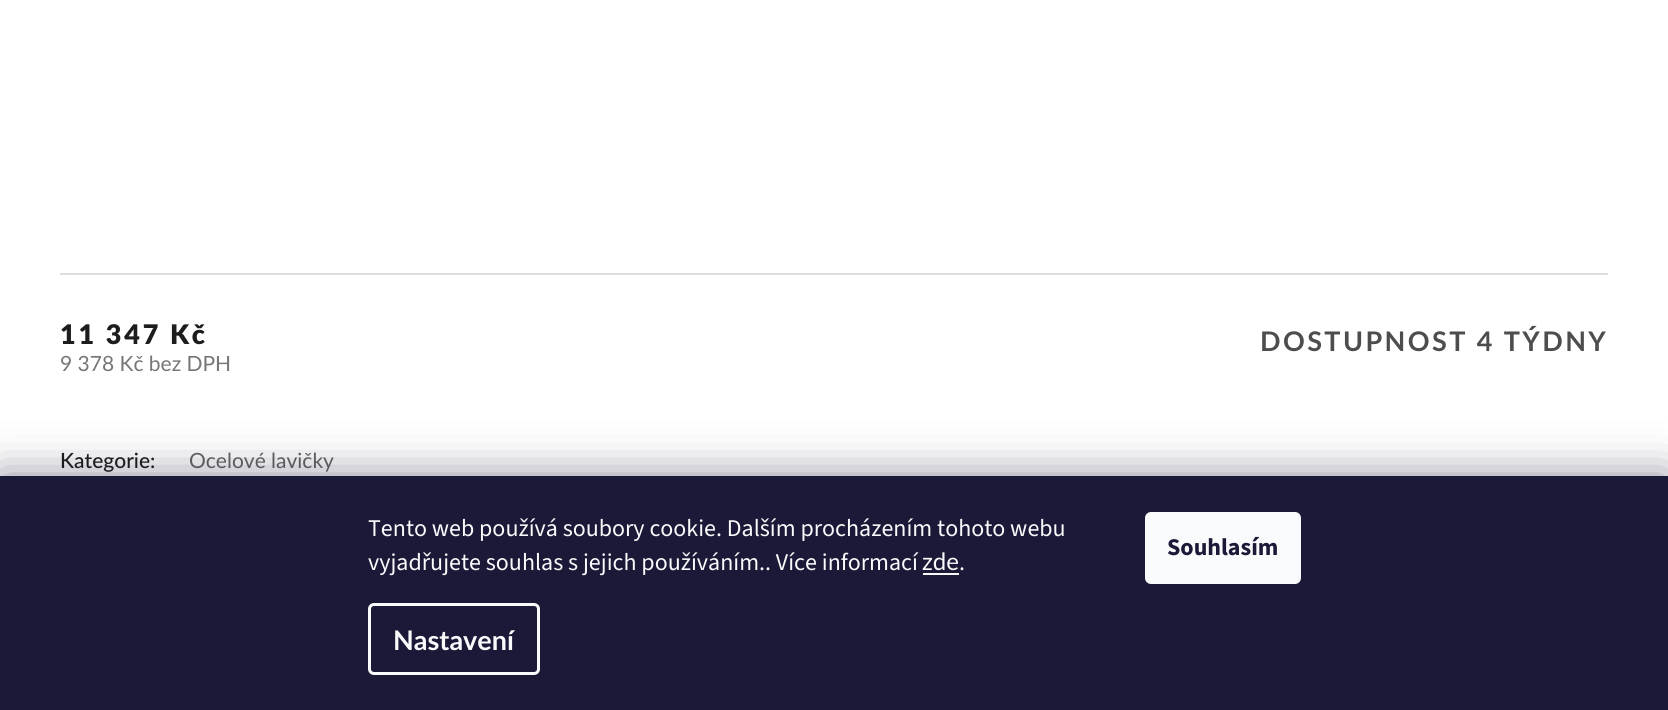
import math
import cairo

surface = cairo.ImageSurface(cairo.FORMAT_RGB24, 1668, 710)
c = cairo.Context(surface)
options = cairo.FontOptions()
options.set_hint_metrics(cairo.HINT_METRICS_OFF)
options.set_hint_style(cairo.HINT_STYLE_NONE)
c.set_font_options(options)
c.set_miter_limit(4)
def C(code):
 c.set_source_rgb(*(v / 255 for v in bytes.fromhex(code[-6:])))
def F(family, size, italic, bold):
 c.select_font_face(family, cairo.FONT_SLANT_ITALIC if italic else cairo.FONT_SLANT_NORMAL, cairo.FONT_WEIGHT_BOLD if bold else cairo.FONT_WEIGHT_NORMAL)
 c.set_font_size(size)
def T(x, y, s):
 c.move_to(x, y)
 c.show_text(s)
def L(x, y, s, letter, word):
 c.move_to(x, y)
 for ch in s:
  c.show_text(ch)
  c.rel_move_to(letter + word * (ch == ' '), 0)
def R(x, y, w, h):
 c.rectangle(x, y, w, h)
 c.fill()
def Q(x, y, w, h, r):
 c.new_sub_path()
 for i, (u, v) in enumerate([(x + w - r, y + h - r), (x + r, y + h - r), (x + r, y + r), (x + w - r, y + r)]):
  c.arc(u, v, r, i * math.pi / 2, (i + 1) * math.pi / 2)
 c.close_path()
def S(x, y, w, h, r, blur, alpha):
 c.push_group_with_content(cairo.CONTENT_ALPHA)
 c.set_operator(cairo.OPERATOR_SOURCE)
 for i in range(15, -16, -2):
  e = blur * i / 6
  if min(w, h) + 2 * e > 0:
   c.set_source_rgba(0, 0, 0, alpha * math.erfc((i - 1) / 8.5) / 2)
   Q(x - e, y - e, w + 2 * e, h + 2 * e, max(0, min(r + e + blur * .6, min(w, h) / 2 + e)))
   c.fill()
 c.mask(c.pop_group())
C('ffffff')
c.paint()
C('dddddd')
R(60,273,1548,2)
F('Lato Black',27,0,0)
C('1d1d1d')
L(60,344,'11 347 Kč',2.75,0)
F('Lato',21,0,0)
C('767676')
T(60,371,'9 378 Kč bez DPH')
F('Lato',27,0,1)
C('4d4d4d')
L(1260,351,'DOSTUPNOST 4 TÝDNY',2.4,0)
F('Lato Medium',21,0,0)
C('1d1d1d')
T(60,468,'Kategorie:')
F('Lato',21,0,0)
C('656565')
T(189,468,'Ocelové lavičky')
C('1b1939')
S(0,476,1668,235,0,22.5,.5)
C('1a1937')
R(0,476,1668,234)
F('Source Sans 3',24,0,0)
C('f8fafb')
T(368,536,'Tento web používá soubory cookie. Dalším procházením tohoto webu')
T(368,570,'vyjadřujete souhlas s jejich používáním.. Více informací')
F('Lato',24,0,0)
T(922,570,'zde')
R(923,573,36,2)
F('Source Sans 3',24,0,0)
T(959,570,'.')
Q(369.5,604.5,169,69,4.5)
c.set_line_width(3)
c.stroke()
F('Lato',27,0,1)
T(393,650,'Nastavení')
Q(1145,512,156,72,6)
c.fill()
F('Source Sans 3',24,0,1)
C('1a1937')
T(1167,555,'Souhlasím')
surface.write_to_png('o.png')
